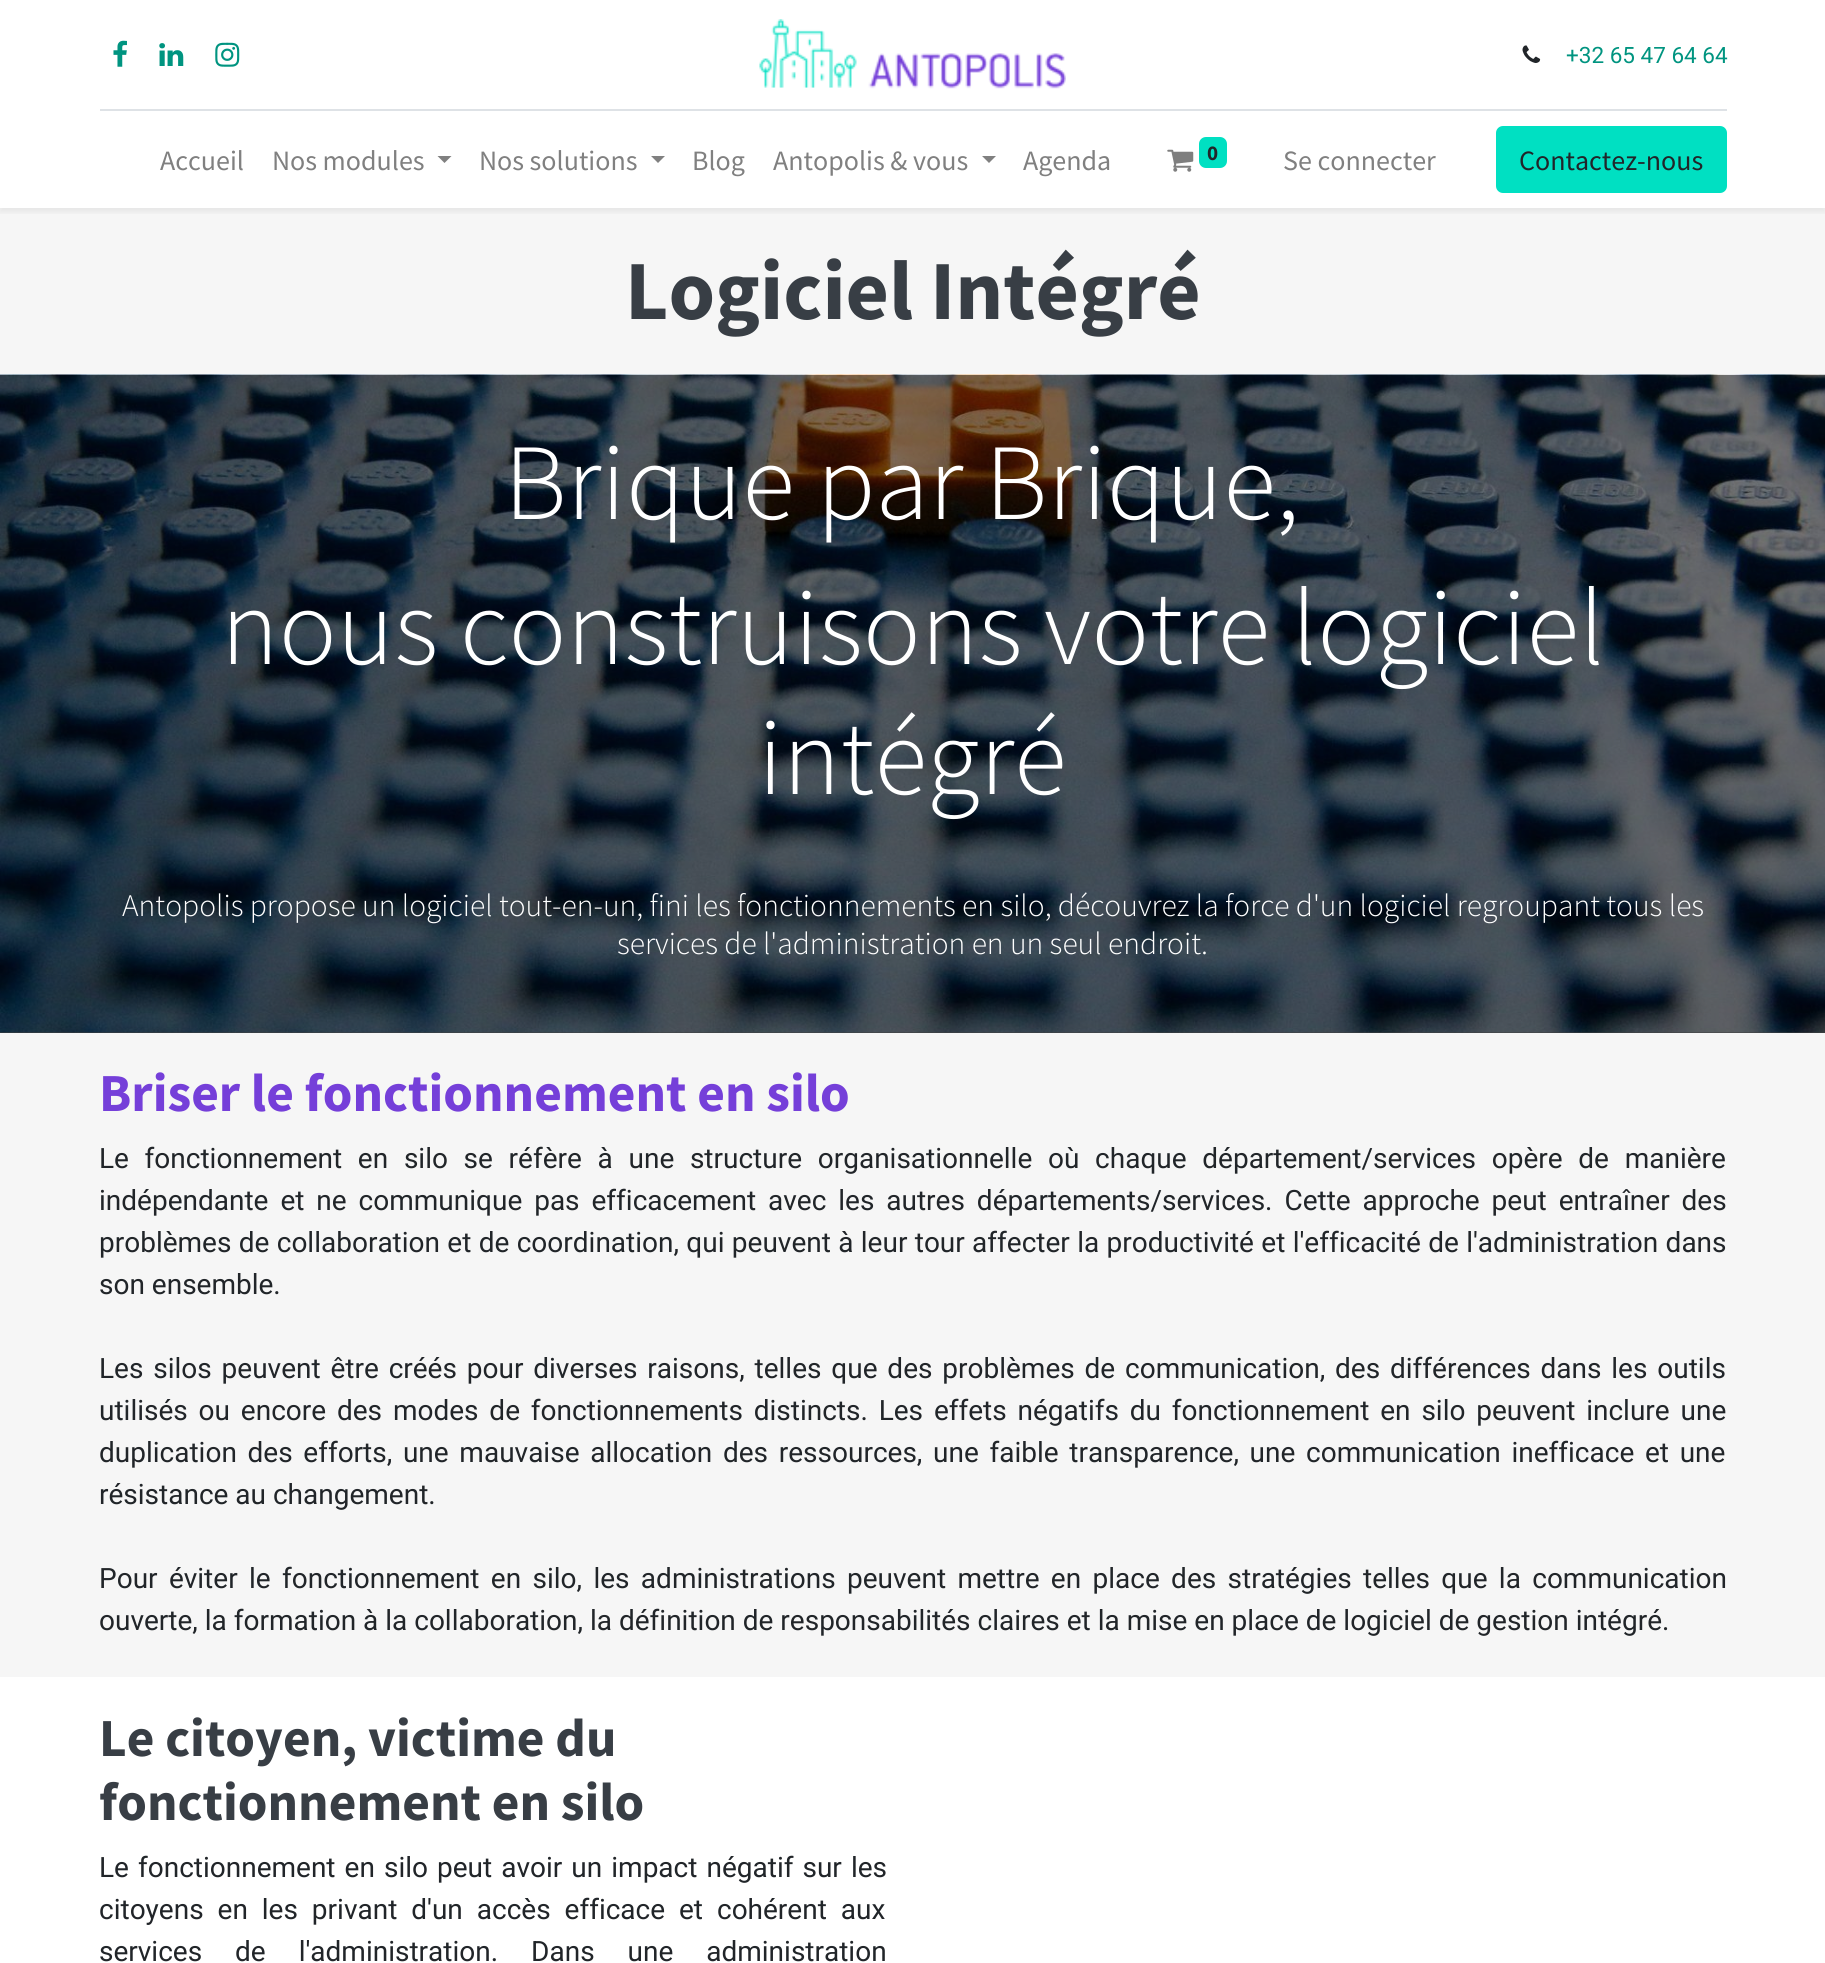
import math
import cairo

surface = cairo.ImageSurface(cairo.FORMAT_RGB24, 1825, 1963)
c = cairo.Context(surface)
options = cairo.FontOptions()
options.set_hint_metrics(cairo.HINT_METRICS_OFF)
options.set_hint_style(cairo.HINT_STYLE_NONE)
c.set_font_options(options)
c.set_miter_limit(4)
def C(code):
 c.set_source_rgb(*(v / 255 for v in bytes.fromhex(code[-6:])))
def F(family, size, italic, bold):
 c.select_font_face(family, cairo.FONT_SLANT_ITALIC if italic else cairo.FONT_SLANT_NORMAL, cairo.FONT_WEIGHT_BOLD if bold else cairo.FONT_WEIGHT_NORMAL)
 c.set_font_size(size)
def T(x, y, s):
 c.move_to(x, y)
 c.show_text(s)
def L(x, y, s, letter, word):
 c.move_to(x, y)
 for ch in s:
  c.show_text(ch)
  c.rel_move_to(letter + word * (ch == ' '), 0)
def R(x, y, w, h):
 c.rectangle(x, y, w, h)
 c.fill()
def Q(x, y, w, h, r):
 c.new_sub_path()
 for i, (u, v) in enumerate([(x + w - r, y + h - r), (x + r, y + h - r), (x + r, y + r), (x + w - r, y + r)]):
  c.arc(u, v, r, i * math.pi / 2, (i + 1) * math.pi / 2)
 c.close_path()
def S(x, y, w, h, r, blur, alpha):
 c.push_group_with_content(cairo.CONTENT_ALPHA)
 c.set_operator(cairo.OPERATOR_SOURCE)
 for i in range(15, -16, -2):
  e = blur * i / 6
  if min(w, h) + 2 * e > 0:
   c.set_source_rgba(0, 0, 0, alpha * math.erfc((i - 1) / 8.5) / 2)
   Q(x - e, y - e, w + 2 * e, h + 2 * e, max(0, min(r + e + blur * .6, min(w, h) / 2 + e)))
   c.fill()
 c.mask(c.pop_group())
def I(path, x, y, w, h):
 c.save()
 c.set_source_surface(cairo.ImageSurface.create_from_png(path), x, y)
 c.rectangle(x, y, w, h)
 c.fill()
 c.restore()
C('ffffff')
c.paint()
C('f6f6f6')
R(0,208,1825,167)
c.save()
c.rectangle(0,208,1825,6)
c.clip()
C('000000')
S(0,4,1825,208,0,3.5,.07)
c.restore()
I('1.png',113,40,14,27)
I('2.png',159,43,25,23)
I('3.png',215,42,25,25)
I('4.png',759,19,307,70)
I('5.png',1522,45,19,18)
F('Roboto',22.5,0,0)
C('009480')
T(1566,63,'+32 65 47 64 64')
C('dee2e6')
R(100,109,1627,2)
F('Source Sans Pro',28,0,0)
C('808080')
T(160,170,'Accueil')
T(272,170,'Nos modules')
c.new_path()
c.move_to(437.5,156)
c.line_to(451.5,156)
c.line_to(444.5,163)
c.close_path()
c.fill()
T(479,170,'Nos solutions')
c.new_path()
c.move_to(651,156)
c.line_to(665,156)
c.line_to(658,163)
c.close_path()
c.fill()
T(692,170,'Blog')
T(773,170,'Antopolis & vous')
c.new_path()
c.move_to(982,156)
c.line_to(996,156)
c.line_to(989,163)
c.close_path()
c.fill()
T(1023,170,'Agenda')
I('6.png',1167,149,27,23)
C('00e0c2')
Q(1199,137,28,31,7)
c.fill()
F('Source Sans Pro',21,0,1)
C('212529')
T(1207,160,'0')
F('Source Sans Pro',28,0,0)
C('808080')
T(1283,170,'Se connecter')
C('00e0c2')
Q(1497,127,229,65,6)
c.fill_preserve()
c.stroke()
C('212529')
T(1519,170,'Contactez-nous')
F('Source Sans Pro',84,0,1)
C('383e45')
T(625,319,'Logiciel Intégré')
C('404040')
R(0,1032,1825,1)
I('7.png',0,374,1825,659)
F('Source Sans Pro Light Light',108.5,0,0)
C('ffffff')
T(504,519,'Brique par Brique,')
T(221,664,'nous construisons votre logiciel')
T(758,794,'intégré')
F('Source Sans Pro Light Light',31.5,0,0)
T(122,916,'Antopolis propose un logiciel tout-en-un, fini les fonctionnements en silo, découvrez la force d\'un logiciel regroupant tous les')
T(617,954,'services de l\'administration en un seul endroit.')
C('f6f6f6')
R(0,1033,1825,644)
F('Source Sans Pro',53.5,0,1)
C('753fd9')
T(99,1111,'Briser le fonctionnement en silo')
F('Roboto',28,0,0)
C('212529')
L(99,1168,'Le fonctionnement en silo se réfère à une structure organisationnelle où chaque département/services opère de manière',0,8.75)
L(99,1210,'indépendante et ne communique pas efficacement avec les autres départements/services. Cette approche peut entraîner des',0,5)
L(99,1252,'problèmes de collaboration et de coordination, qui peuvent à leur tour affecter la productivité et l\'efficacité de l\'administration dans',0,.4)
T(99,1294,'son ensemble.')
L(99,1378,'Les silos peuvent être créés pour diverses raisons, telles que des problèmes de communication, des différences dans les outils',0,2.9)
L(99,1420,'utilisés ou encore des modes de fonctionnements distincts. Les effets négatifs du fonctionnement en silo peuvent inclure une',0,3.9)
L(99,1462,'duplication des efforts, une mauvaise allocation des ressources, une faible transparence, une communication inefficace et une',0,3.75)
T(99,1504,'résistance au changement.')
L(99,1588,'Pour éviter le fonctionnement en silo, les administrations peuvent mettre en place des stratégies telles que la communication',0,4.4)
T(99,1630,'ouverte, la formation à la collaboration, la définition de responsabilités claires et la mise en place de logiciel de gestion intégré.')
F('Source Sans Pro',53.5,0,1)
C('383e45')
T(99,1756,'Le citoyen, victime du')
T(99,1820,'fonctionnement en silo')
F('Roboto',28,0,0)
C('212529')
L(99,1877,'Le fonctionnement en silo peut avoir un impact négatif sur les',0,2.1)
L(99,1919,'citoyens en les privant d\'un accès efficace et cohérent aux',0,7)
L(99,1961,'services de l\'administration. Dans une administration',0,26)
surface.write_to_png('o.png')
